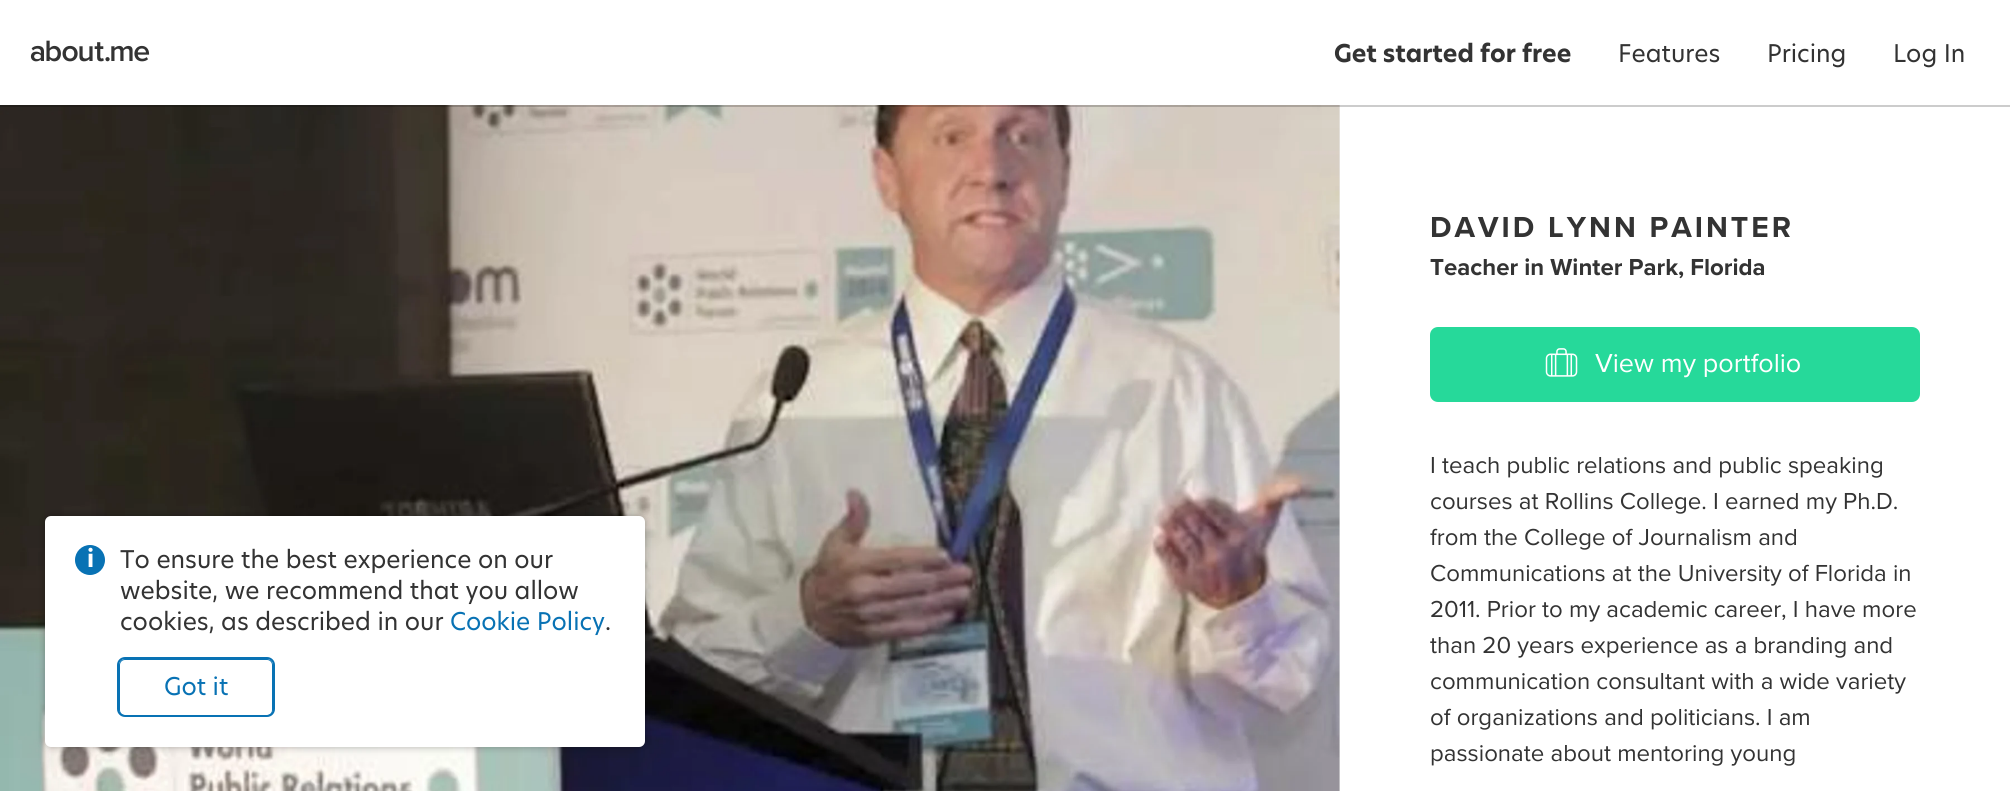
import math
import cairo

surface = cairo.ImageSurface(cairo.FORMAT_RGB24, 2010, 791)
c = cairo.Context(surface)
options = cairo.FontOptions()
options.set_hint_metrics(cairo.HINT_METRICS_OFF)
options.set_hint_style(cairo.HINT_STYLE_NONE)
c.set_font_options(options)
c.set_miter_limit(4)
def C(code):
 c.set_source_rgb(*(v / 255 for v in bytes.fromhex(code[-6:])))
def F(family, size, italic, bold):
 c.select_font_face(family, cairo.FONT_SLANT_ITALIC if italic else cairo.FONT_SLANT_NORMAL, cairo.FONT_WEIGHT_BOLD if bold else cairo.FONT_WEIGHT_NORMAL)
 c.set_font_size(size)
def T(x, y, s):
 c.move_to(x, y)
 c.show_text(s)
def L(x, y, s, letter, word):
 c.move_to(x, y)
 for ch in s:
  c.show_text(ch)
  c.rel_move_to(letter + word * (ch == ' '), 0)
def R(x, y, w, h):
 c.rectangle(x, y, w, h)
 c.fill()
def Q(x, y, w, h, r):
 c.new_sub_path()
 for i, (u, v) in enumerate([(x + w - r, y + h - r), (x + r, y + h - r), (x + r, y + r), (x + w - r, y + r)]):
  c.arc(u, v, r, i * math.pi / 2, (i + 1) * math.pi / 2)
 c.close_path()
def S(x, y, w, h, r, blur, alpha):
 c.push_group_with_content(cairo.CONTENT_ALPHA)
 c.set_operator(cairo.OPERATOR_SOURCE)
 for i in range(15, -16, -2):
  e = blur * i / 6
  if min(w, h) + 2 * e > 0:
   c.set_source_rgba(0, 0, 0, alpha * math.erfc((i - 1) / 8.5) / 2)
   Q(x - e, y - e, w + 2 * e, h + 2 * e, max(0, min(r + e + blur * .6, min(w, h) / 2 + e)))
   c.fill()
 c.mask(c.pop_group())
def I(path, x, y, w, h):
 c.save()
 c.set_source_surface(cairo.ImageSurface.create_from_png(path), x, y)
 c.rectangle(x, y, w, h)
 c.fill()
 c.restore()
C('ffffff')
c.paint()
C('eeeeee')
R(1339,105,1,686)
I('3.png',0,105,1340,686)
C('000000')
S(45,516,600,231,6,4,.3)
C('ffffff')
Q(45,516,600,231,6)
c.fill()
C('0872b4')
c.arc(90,560,15,0,2 * math.pi)
c.fill()
I('1.png',88,547,5,20)
F('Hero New',24,0,0)
C('333333')
T(120,568,'To ensure the best experience on our')
T(120,599,'website, we recommend that you allow')
T(120,630,'cookies, as described in our')
C('0872b4')
T(450,630,'Cookie Policy')
C('333333')
T(605,630,'.')
Q(119.5,659.5,153,56,5.5)
C('0872b4')
c.set_line_width(1)
c.stroke()
Q(118,658,156,58,7)
c.set_line_width(2)
c.stroke()
T(164,695,'Got it')
c.set_source_rgba(0,0,0,0.2)
R(0,105,2010,2)
I('2.png',30,40,120,22)
F('Hero New',24,0,1)
C('333333')
T(1334,62,'Get started for free')
F('Hero New',24,0,0)
T(1618,62,'Features')
T(1767,62,'Pricing')
T(1893,62,'Log In')
F('Proxima Nova',30,0,1)
L(1430,237,'DAVID LYNN PAINTER',3,0)
F('Proxima Nova',24,0,1)
T(1430,275,'Teacher in Winter Park, Florida')
C('26d99a')
Q(1431,328,488,73,7)
c.fill_preserve()
c.stroke()
I('4.png',1545,348,33,29)
F('Proxima Nova',27,0,0)
C('ffffff')
T(1595,372,'View my portfolio')
F('Proxima Nova',24,0,0)
C('333333')
T(1430,473,'I teach public relations and public speaking')
T(1430,509,'courses at Rollins College. I earned my Ph.D.')
T(1430,545,'from the College of Journalism and')
T(1430,581,'Communications at the University of Florida in')
T(1430,617,'2011. Prior to my academic career, I have more')
T(1430,653,'than 20 years experience as a branding and')
T(1430,689,'communication consultant with a wide variety')
T(1430,725,'of organizations and politicians. I am')
T(1430,761,'passionate about mentoring young')
surface.write_to_png('o.png')
